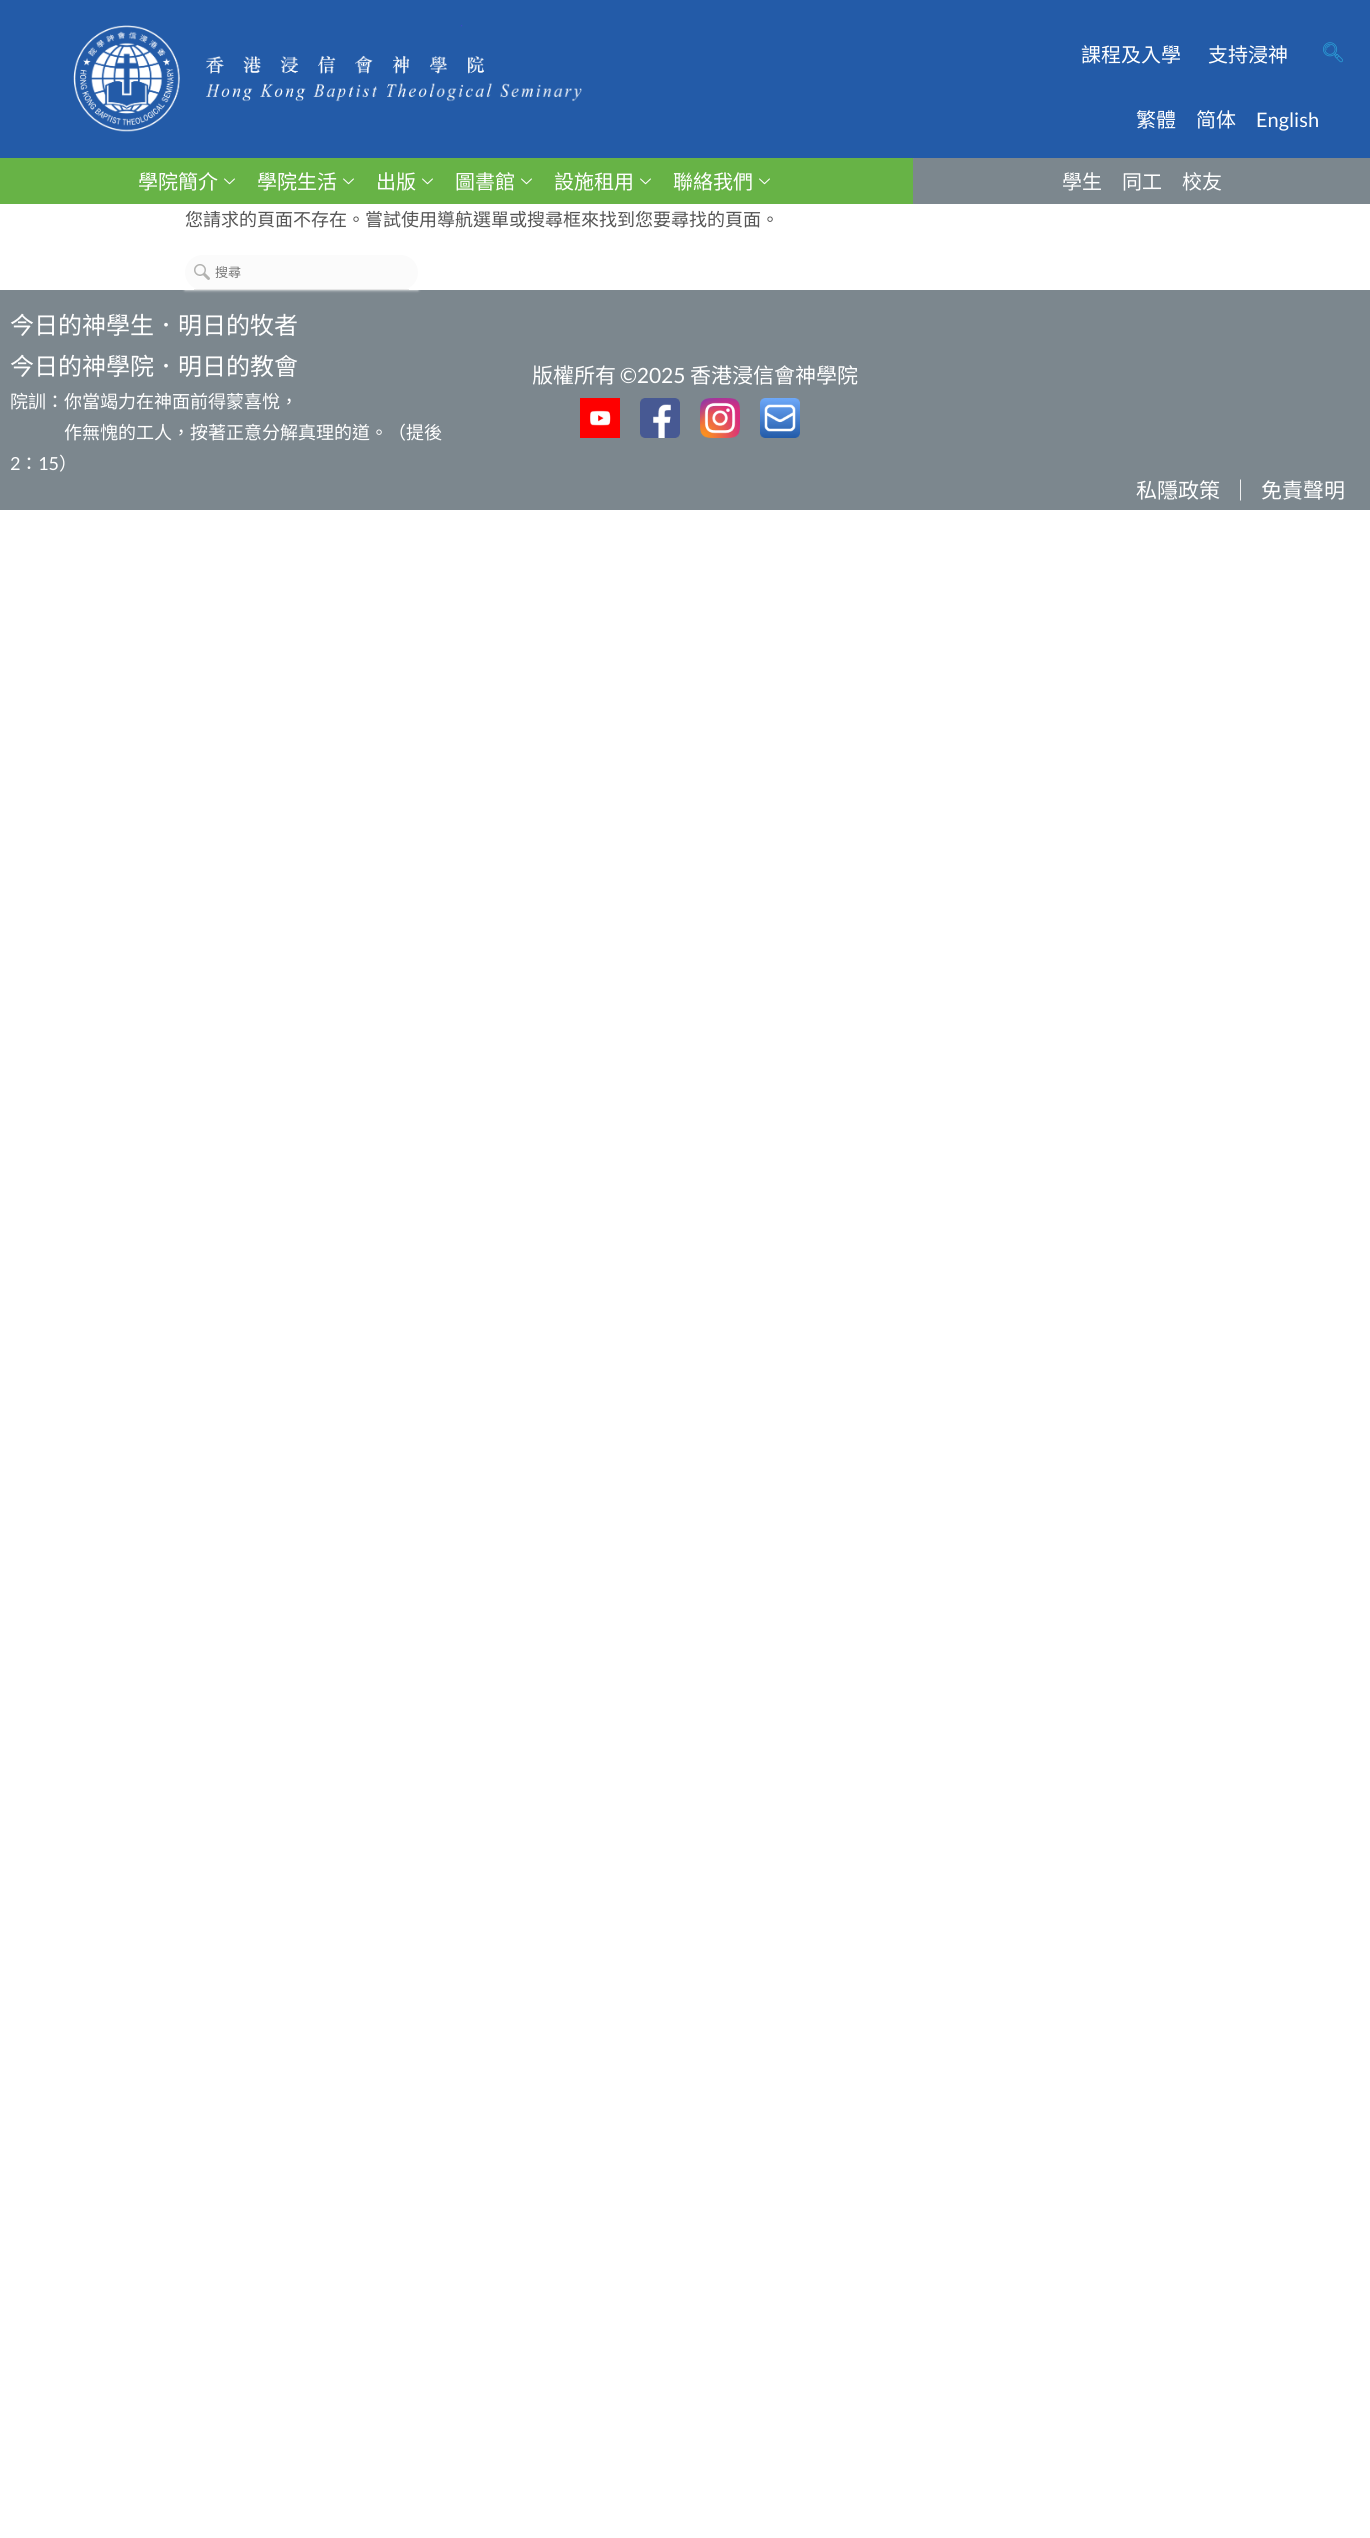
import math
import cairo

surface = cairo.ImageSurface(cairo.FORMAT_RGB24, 1370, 2538)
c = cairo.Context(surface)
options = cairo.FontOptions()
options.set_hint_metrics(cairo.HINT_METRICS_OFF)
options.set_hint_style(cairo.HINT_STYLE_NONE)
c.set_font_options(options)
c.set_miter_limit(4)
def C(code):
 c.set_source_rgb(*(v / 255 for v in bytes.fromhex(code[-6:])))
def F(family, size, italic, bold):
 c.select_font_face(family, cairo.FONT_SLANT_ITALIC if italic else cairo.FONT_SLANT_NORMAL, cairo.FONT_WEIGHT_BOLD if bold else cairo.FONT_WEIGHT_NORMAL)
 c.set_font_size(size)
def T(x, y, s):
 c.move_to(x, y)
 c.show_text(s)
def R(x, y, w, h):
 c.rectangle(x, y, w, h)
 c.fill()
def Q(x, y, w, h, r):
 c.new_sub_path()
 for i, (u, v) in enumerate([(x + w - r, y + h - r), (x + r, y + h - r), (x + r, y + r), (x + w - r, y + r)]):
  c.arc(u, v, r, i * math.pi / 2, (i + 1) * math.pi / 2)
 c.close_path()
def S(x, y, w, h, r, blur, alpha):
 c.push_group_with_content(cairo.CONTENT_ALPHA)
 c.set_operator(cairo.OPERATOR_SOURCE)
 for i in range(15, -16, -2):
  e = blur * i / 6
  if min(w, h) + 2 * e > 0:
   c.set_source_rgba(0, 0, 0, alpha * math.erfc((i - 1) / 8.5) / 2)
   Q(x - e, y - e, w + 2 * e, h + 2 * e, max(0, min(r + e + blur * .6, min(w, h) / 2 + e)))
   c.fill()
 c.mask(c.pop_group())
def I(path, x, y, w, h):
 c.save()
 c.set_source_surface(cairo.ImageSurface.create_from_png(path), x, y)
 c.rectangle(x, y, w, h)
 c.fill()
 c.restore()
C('ffffff')
c.paint()
C('235ba8')
R(0,0,1370,158)
I('1.png',73,25,509,107)
F('Noto Sans CJK HK',20,0,0)
C('ffffff')
T(1081,62,'課程及入學')
T(1208,62,'支持浸神')
I('2.png',1323,42,20,21)
T(1136,127,'繁體')
T(1196,127,'简体')
F('Lato',20,0,0)
T(1256,127,'English')
C('67b346')
R(0,158,913,46)
F('Noto Sans CJK HK',20,0,0)
C('ffffff')
T(138,189,'學院簡介')
I('3.png',224,178,11,7)
T(257,189,'學院生活')
I('3.png',343,178,11,7)
T(376,189,'出版')
I('3.png',422,178,11,7)
T(455,189,'圖書館')
I('3.png',521,178,11,7)
T(554,189,'設施租用')
I('3.png',640,178,11,7)
T(673,189,'聯絡我們')
I('3.png',759,178,11,7)
C('7c878e')
R(913,158,457,46)
C('ffffff')
T(1062,189,'學生')
T(1122,189,'同工')
T(1182,189,'校友')
F('Noto Sans CJK HK',18,0,0)
C('555555')
T(185,226,'您請求的頁面不存在。嘗試使用導航選單或搜尋框來找到您要尋找的頁面。')
C('7c878e')
R(0,290,1370,220)
c.save()
c.set_fill_rule(cairo.FILL_RULE_EVEN_ODD)
c.new_path()
c.move_to(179,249)
c.line_to(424,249)
c.line_to(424,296)
c.line_to(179,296)
c.close_path()
c.move_to(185,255)
c.line_to(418,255)
c.line_to(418,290)
c.line_to(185,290)
c.close_path()
c.clip()
C('ffffff')
S(185,255,233,35,0,1.5,1)
c.restore()
C('fbfbfb')
Q(185,255,233,35,17.5)
c.fill()
I('4.png',194,264,16,16)
c.set_source_rgba(0.769,0.769,0.769,0.4)
R(194,289,215,1)
F('Noto Sans CJK HK',13,0,0)
C('757575')
T(215,277,'搜尋')
F('Noto Sans CJK HK',24,0,0)
C('ffffff')
T(10,334,'今日的神學生．明日的牧者')
T(10,375,'今日的神學院．明日的教會')
F('Noto Sans CJK HK',18,0,0)
T(10,408,'院訓：你當竭力在神面前得蒙喜悅，')
T(64,439,'作無愧的工人，按著正意分解真理的道。（提後')
F('Lato',18,0,0)
T(10,470,'2')
F('Noto Sans CJK HK',18,0,0)
T(20,470,'：')
F('Lato',18,0,0)
T(38,470,'15')
F('Noto Sans CJK HK',18,0,0)
T(59,470,'）')
F('Noto Sans CJK HK',21,0,0)
T(532,383,'版權所有')
F('Lato',21,0,0)
T(620,383,'©2025')
F('Noto Sans CJK HK',21,0,0)
T(690,383,'香港浸信會神學院')
I('5.png',580,398,40,40)
I('6.png',640,398,40,40)
I('7.png',700,398,40,40)
I('8.png',760,398,40,40)
T(1136,498,'私隱政策')
T(1230,498,'｜')
T(1261,498,'免責聲明')
surface.write_to_png('o.png')
